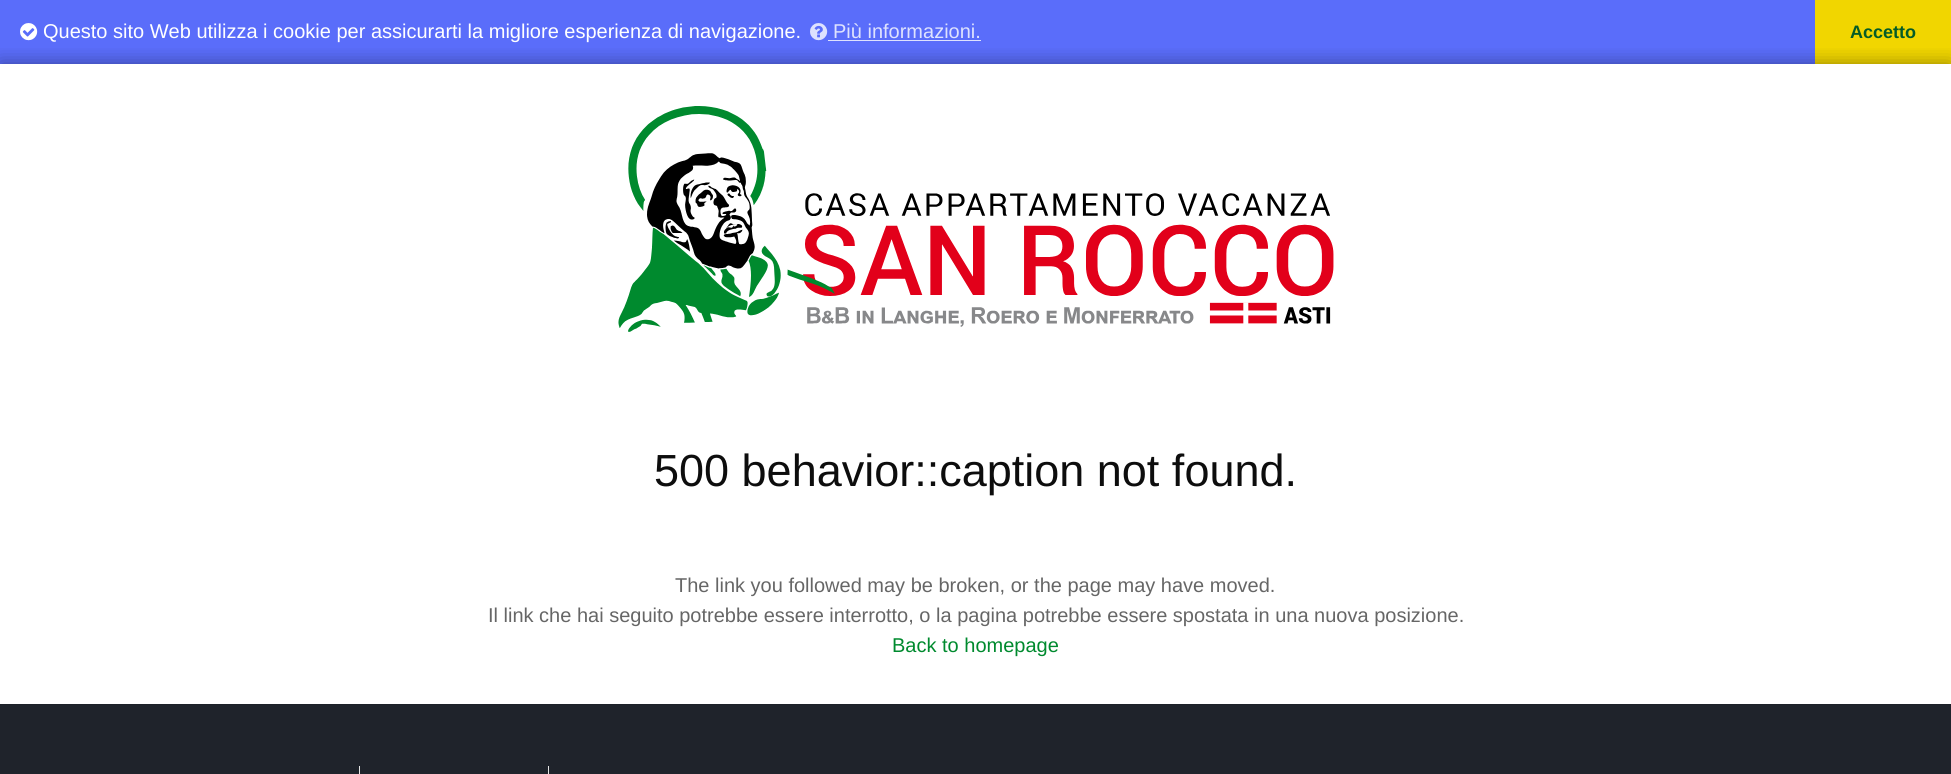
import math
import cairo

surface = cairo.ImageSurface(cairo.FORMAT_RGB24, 1951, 774)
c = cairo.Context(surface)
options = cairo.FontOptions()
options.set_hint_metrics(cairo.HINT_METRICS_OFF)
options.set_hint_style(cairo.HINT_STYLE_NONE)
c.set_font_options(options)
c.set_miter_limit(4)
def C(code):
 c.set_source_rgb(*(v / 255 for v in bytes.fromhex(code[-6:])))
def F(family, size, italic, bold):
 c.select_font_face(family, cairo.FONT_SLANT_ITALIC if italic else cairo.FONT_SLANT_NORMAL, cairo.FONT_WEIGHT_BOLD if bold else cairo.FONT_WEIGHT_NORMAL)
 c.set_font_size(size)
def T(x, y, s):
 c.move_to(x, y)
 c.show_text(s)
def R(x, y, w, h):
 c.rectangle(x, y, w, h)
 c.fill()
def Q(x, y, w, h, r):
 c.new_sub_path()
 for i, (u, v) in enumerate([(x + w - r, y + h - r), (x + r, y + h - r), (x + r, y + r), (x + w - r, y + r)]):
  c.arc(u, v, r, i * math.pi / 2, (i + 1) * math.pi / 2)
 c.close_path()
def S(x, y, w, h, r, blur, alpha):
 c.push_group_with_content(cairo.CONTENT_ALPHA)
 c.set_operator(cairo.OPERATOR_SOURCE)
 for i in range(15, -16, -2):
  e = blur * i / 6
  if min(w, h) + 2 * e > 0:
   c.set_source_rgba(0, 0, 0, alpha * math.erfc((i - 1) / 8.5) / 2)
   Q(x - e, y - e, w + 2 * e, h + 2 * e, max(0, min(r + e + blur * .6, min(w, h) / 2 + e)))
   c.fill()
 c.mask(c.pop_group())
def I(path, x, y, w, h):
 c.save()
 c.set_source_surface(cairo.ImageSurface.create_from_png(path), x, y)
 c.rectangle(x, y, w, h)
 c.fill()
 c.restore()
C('ffffff')
c.paint()
C('5a6dfa')
R(0,0,1815,64)
I('1.png',20,23,18,18)
F('Liberation Sans',20,0,0)
C('ffffff')
T(43,38,'Questo sito Web utilizza i cookie per assicurarti la migliore esperienza di navigazione.')
I('2.png',810,23,18,18)
C('dee2fe')
T(833,38,'Più informazioni.')
R(828,40,153,1)
C('f1d600')
R(1815,0,136,64)
F('Liberation Sans',18,0,1)
C('045c27')
T(1850,38,'Accetto')
c.save()
c.rectangle(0,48,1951,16)
c.clip()
C('000000')
S(0,64,1951,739,0,9.5,.4)
c.restore()
I('3.png',618,106,716,226)
F('Liberation Sans',45,0,0)
C('0d0d0d')
T(654,486,'500 behavior::caption not found.')
F('Liberation Sans',20,0,0)
C('666666')
T(675,592,'The link you followed may be broken, or the page may have moved.')
T(488,622,'Il link che hai seguito potrebbe essere interrotto, o la pagina potrebbe essere spostata in una nuova posizione.')
C('008a2e')
T(892,652,'Back to homepage')
C('1f232b')
R(0,705,1951,69)
C('1d2129')
R(0,704,1951,1)
C('e5e5e5')
R(359,766,1,8)
R(548,766,1,8)
surface.write_to_png('o.png')
